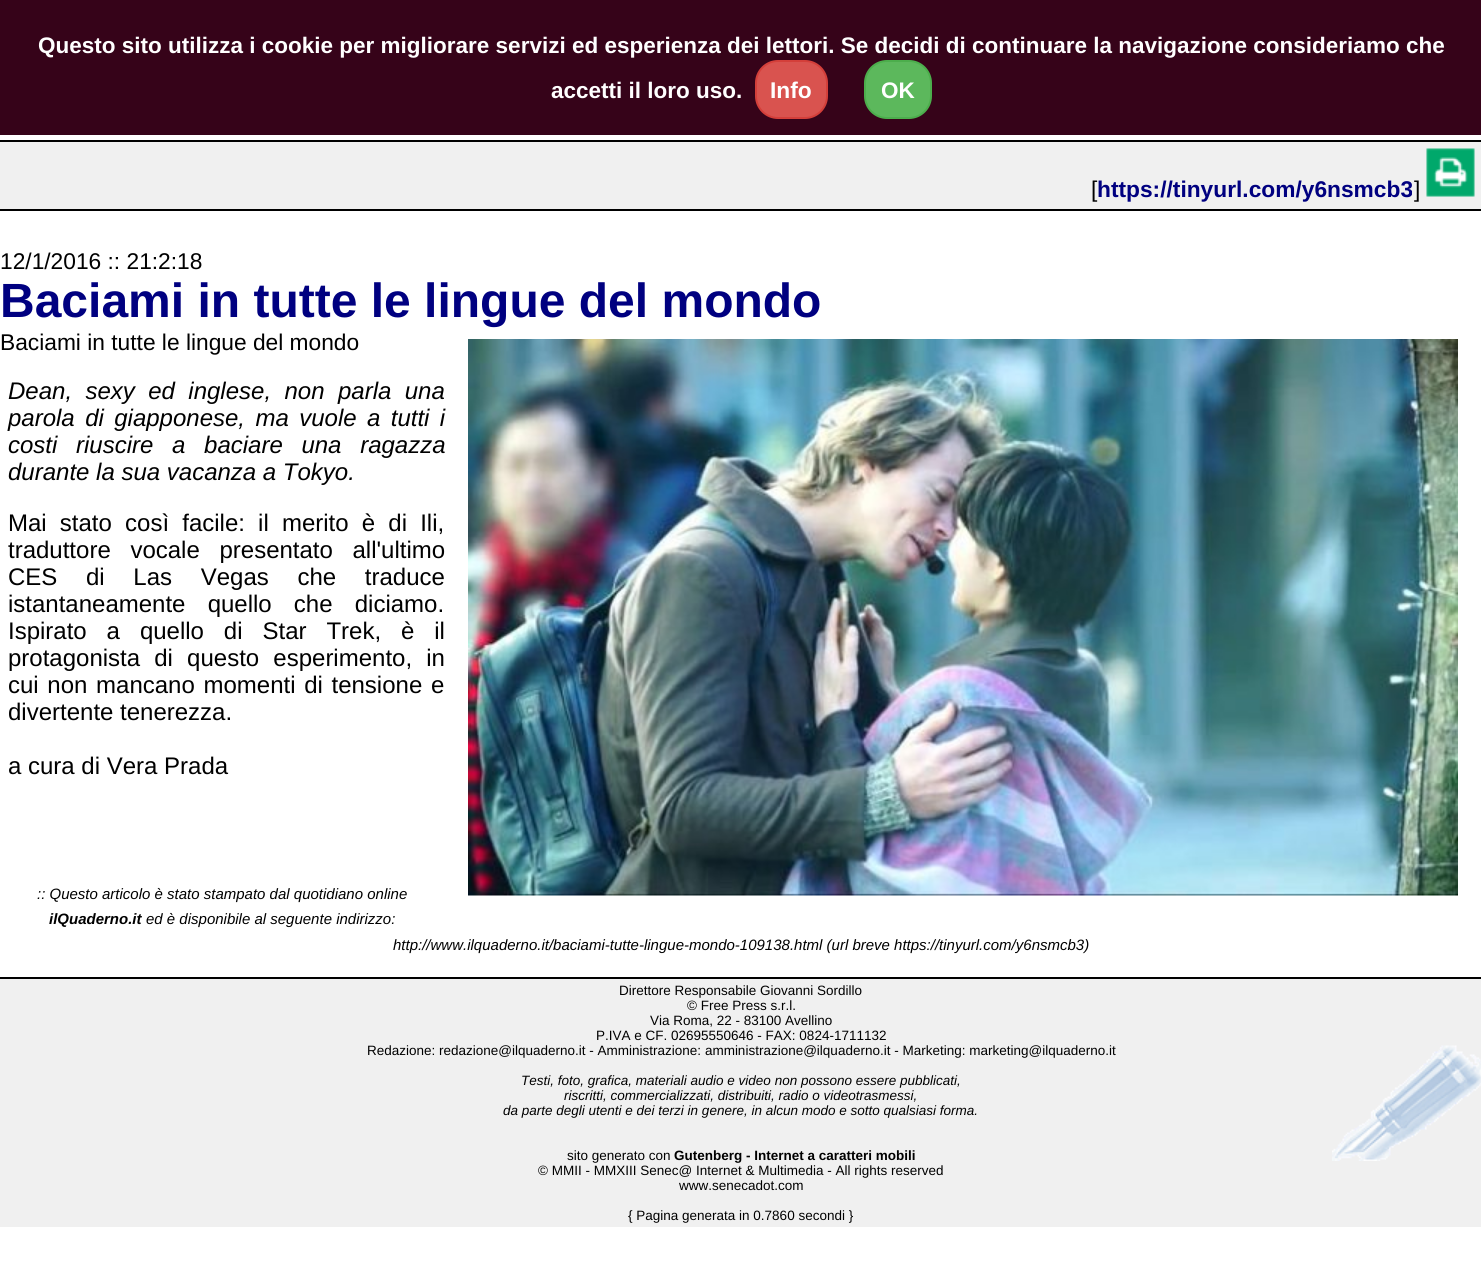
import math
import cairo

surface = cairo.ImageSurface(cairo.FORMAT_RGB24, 1481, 1285)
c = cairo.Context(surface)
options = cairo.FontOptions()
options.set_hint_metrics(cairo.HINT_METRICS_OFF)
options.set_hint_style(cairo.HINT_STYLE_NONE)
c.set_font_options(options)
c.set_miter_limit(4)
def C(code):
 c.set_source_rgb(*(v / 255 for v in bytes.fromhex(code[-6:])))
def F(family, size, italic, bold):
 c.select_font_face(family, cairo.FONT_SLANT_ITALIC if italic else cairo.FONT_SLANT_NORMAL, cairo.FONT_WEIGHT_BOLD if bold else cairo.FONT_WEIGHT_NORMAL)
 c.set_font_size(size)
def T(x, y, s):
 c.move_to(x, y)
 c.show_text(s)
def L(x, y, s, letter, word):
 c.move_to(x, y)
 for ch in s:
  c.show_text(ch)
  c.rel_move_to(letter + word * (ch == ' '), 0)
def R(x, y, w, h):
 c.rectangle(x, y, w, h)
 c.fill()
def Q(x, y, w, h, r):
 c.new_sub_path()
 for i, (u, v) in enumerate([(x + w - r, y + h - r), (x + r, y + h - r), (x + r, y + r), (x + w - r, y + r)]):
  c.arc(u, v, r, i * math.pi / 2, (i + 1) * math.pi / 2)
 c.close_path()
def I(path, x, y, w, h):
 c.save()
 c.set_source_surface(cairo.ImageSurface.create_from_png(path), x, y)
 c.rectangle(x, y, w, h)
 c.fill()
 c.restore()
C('ffffff')
c.paint()
C('360319')
R(0,0,1481,135)
F('Liberation Sans',22.5,0,1)
C('ffffff')
T(38,53,'Questo sito utilizza i cookie per migliorare servizi ed esperienza dei lettori. Se decidi di continuare la navigazione consideriamo che')
T(551,98,'accetti il loro uso.')
C('d9534f')
Q(756,61,71,57,22)
c.fill_preserve()
C('d43f3a')
c.stroke()
F('Liberation Sans',22.75,0,1)
C('ffffff')
T(770,98,'Info')
C('5cb85c')
Q(865,61,66,57,22)
c.fill_preserve()
C('4cae4c')
c.stroke()
F('Liberation Sans',22.5,0,1)
C('ffffff')
T(881,98,'OK')
C('f0f0f0')
R(0,142,1481,67)
C('000000')
R(0,140,1481,2)
R(0,209,1481,2)
F('Liberation Sans',22.75,0,0)
T(1091,197,'[')
F('Liberation Sans',22.75,0,1)
C('000080')
T(1097,197,'https://tinyurl.com/y6nsmcb3')
F('Liberation Sans',22.75,0,0)
C('000000')
T(1414,197,']')
I('1.png',1426,148,49,49)
T(0,269,'12/1/2016 :: 21:2:18')
F('Liberation Sans',48,0,1)
C('000080')
T(0,317,'Baciami in tutte le lingue del mondo')
F('Liberation Sans',22.75,0,0)
C('000000')
T(0,350,'Baciami in tutte le lingue del mondo')
I('2.png',468,339,990,557)
F('Liberation Sans',24,1,0)
L(8,399,'Dean, sexy ed inglese, non parla una',0,6.75)
L(8,426,'parola di giapponese, ma vuole a tutti i',0,3.75)
L(8,453,'costi riuscire a baciare una ragazza',0,12)
T(8,480,'durante la sua vacanza a Tokyo.')
F('Liberation Sans',24,0,0)
L(8,531,'Mai stato così facile: il merito è di Ili,',0,6.5)
L(8,558,'traduttore vocale presentato all\'ultimo',0,13)
L(8,585,'CES di Las Vegas che traduce',0,22)
L(8,612,'istantaneamente quello che diciamo.',0,15.5)
L(8,639,'Ispirato a quello di Star Trek, è il',0,13.25)
L(8,666,'protagonista di questo esperimento, in',0,7.5)
L(8,693,'cui non mancano momenti di tensione e',0,2)
T(8,720,'divertente tenerezza.')
T(8,774,'a cura di Vera Prada')
F('Liberation Sans',15,1,0)
T(37,899,':: Questo articolo è stato stampato dal quotidiano online')
F('Liberation Sans',15,1,1)
T(49,924,'ilQuaderno.it')
F('Liberation Sans',15,1,0)
T(146,924,'ed è disponibile al seguente indirizzo:')
T(393,950,'http://www.ilquaderno.it/baciami-tutte-lingue-mondo-109138.html (url breve https://tinyurl.com/y6nsmcb3)')
C('f0f0f0')
R(0,979,1481,248)
I('3.png',1332,1045,149,116)
C('000000')
R(0,977,1481,2)
F('Liberation Sans',13.5,0,0)
T(619,995,'Direttore Responsabile Giovanni Sordillo')
T(687,1010,'© Free Press s.r.l.')
T(650,1025,'Via Roma, 22 - 83100 Avellino')
T(596,1040,'P.IVA e CF. 02695550646 - FAX: 0824-1711132')
T(367,1055,'Redazione: redazione@ilquaderno.it - Amministrazione: amministrazione@ilquaderno.it - Marketing: marketing@ilquaderno.it')
F('Liberation Sans',13.5,1,0)
T(521,1085,'Testi, foto, grafica, materiali audio e video non possono essere pubblicati,')
T(564,1100,'riscritti, commercializzati, distribuiti, radio o videotrasmessi,')
T(503,1115,'da parte degli utenti e dei terzi in genere, in alcun modo e sotto qualsiasi forma.')
F('Liberation Sans',13.5,0,0)
T(567,1160,'sito generato con')
F('Liberation Sans',13.5,0,1)
T(674,1160,'Gutenberg - Internet a caratteri mobili')
F('Liberation Sans',13.5,0,0)
T(538,1175,'© MMII - MMXIII Senec@ Internet & Multimedia - All rights reserved')
T(679,1190,'www.senecadot.com')
T(628,1220,'{ Pagina generata in 0.7860 secondi }')
surface.write_to_png('o.png')
